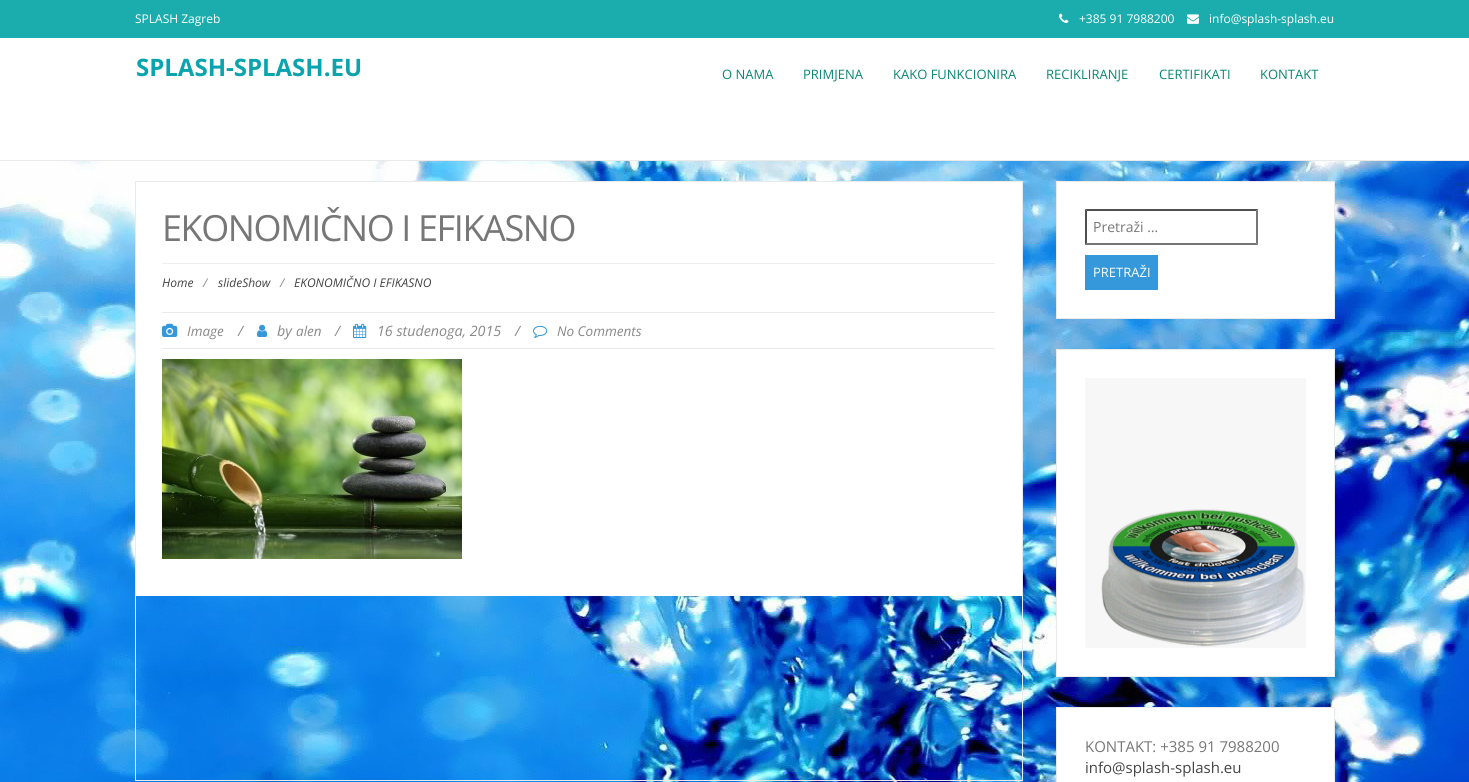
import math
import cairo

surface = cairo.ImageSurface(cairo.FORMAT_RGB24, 1469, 782)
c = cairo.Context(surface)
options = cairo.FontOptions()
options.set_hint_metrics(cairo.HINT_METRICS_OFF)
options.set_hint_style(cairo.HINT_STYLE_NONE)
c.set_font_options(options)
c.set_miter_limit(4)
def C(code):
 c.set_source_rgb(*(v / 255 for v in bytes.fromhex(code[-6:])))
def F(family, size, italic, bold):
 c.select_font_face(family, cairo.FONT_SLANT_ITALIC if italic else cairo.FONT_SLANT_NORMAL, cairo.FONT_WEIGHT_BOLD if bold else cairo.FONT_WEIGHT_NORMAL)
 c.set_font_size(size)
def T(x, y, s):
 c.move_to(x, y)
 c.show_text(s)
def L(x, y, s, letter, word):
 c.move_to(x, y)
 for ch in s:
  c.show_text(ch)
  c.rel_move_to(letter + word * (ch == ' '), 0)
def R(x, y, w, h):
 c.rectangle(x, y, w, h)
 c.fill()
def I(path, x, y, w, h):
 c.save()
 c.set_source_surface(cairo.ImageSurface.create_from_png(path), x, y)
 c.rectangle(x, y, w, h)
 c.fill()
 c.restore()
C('ffffff')
c.paint()
I('1.png',0,161,1469,621)
C('1badad')
R(0,0,1469,38)
F('Open Sans',12,0,0)
C('ffffff')
T(135,23,'SPLASH Zagreb')
I('2.png',1059,13,10,10)
T(1079,23,'+385 91 7988200')
I('3.png',1187,14,12,10)
T(1209,23,'info@splash-splash.eu')
C('eaeaea')
R(0,160,1469,1)
F('Open Sans',24,0,1)
C('0aa4af')
T(136,76,'SPLASH-SPLASH.EU')
F('Open Sans',13,0,0)
C('098772')
T(722,79,'O NAMA')
T(803,79,'PRIMJENA')
T(893,79,'KAKO FUNKCIONIRA')
T(1046,79,'RECIKLIRANJE')
T(1159,79,'CERTIFIKATI')
T(1260,79,'KONTAKT')
c.rectangle(135.5,181.5,887,599)
C('eaeaea')
c.set_line_width(1)
c.stroke()
C('ffffff')
R(136,182,886,414)
F('Open Sans',36,0,0)
C('777777')
L(162,241,'EKONOMIČNO I EFIKASNO',-1.4,0)
C('eeeeee')
R(162,263,833,1)
F('Open Sans',12,1,0)
C('444444')
T(162,287,'Home')
C('888888')
T(203,287,'/')
C('444444')
T(218,287,'slideShow')
C('888888')
T(280,287,'/')
C('444444')
T(294,287,'EKONOMIČNO I EFIKASNO')
C('eaeaea')
R(162,312,833,1)
R(162,348,833,1)
I('4.png',162,323,16,14)
F('Open Sans',13.5,1,0)
C('888888')
T(187,336,'Image')
F('Open Sans',14.25,1,0)
T(238,336,'/')
I('5.png',257,324,11,13)
T(277,336,'by')
F('Open Sans',13.5,1,0)
T(296,336,'alen')
F('Open Sans',14.25,1,0)
T(335,336,'/')
I('6.png',353,323,14,16)
T(377,336,'16 studenoga, 2015')
T(515,336,'/')
I('7.png',533,325,15,13)
F('Open Sans',13.5,1,0)
T(557,336,'No Comments')
I('8.png',162,359,300,200)
C('ffffff')
c.rectangle(1056.5,181.5,278,137)
c.fill_preserve()
C('eaeaea')
c.stroke()
C('4f4f4f')
c.new_path()
c.move_to(1085,209)
c.line_to(1258,209)
c.line_to(1256,211)
c.line_to(1087,211)
c.close_path()
c.fill()
C('767676')
c.new_path()
c.move_to(1258,209)
c.line_to(1258,245)
c.line_to(1256,243)
c.line_to(1256,211)
c.close_path()
c.fill()
c.new_path()
c.move_to(1258,245)
c.line_to(1085,245)
c.line_to(1087,243)
c.line_to(1256,243)
c.close_path()
c.fill()
C('4f4f4f')
c.new_path()
c.move_to(1085,245)
c.line_to(1085,209)
c.line_to(1087,211)
c.line_to(1087,243)
c.close_path()
c.fill()
F('Open Sans',14,0,0)
C('777777')
T(1093,232,'Pretraži …')
C('3498db')
R(1085,255,73,35)
F('Open Sans',13,0,0)
C('ffffff')
T(1093,277,'PRETRAŽI')
c.rectangle(1056.5,349.5,278,327)
c.fill_preserve()
C('eaeaea')
c.stroke()
I('9.png',1085,378,221,270)
C('ffffff')
c.rectangle(1056.5,707.5,278,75)
c.fill_preserve()
C('eaeaea')
c.stroke()
F('Open Sans',15,0,0)
C('777777')
T(1085,752,'KONTAKT: +385 91 7988200 ')
C('444444')
T(1085,773,'info@splash-splash.eu')
surface.write_to_png('o.png')
